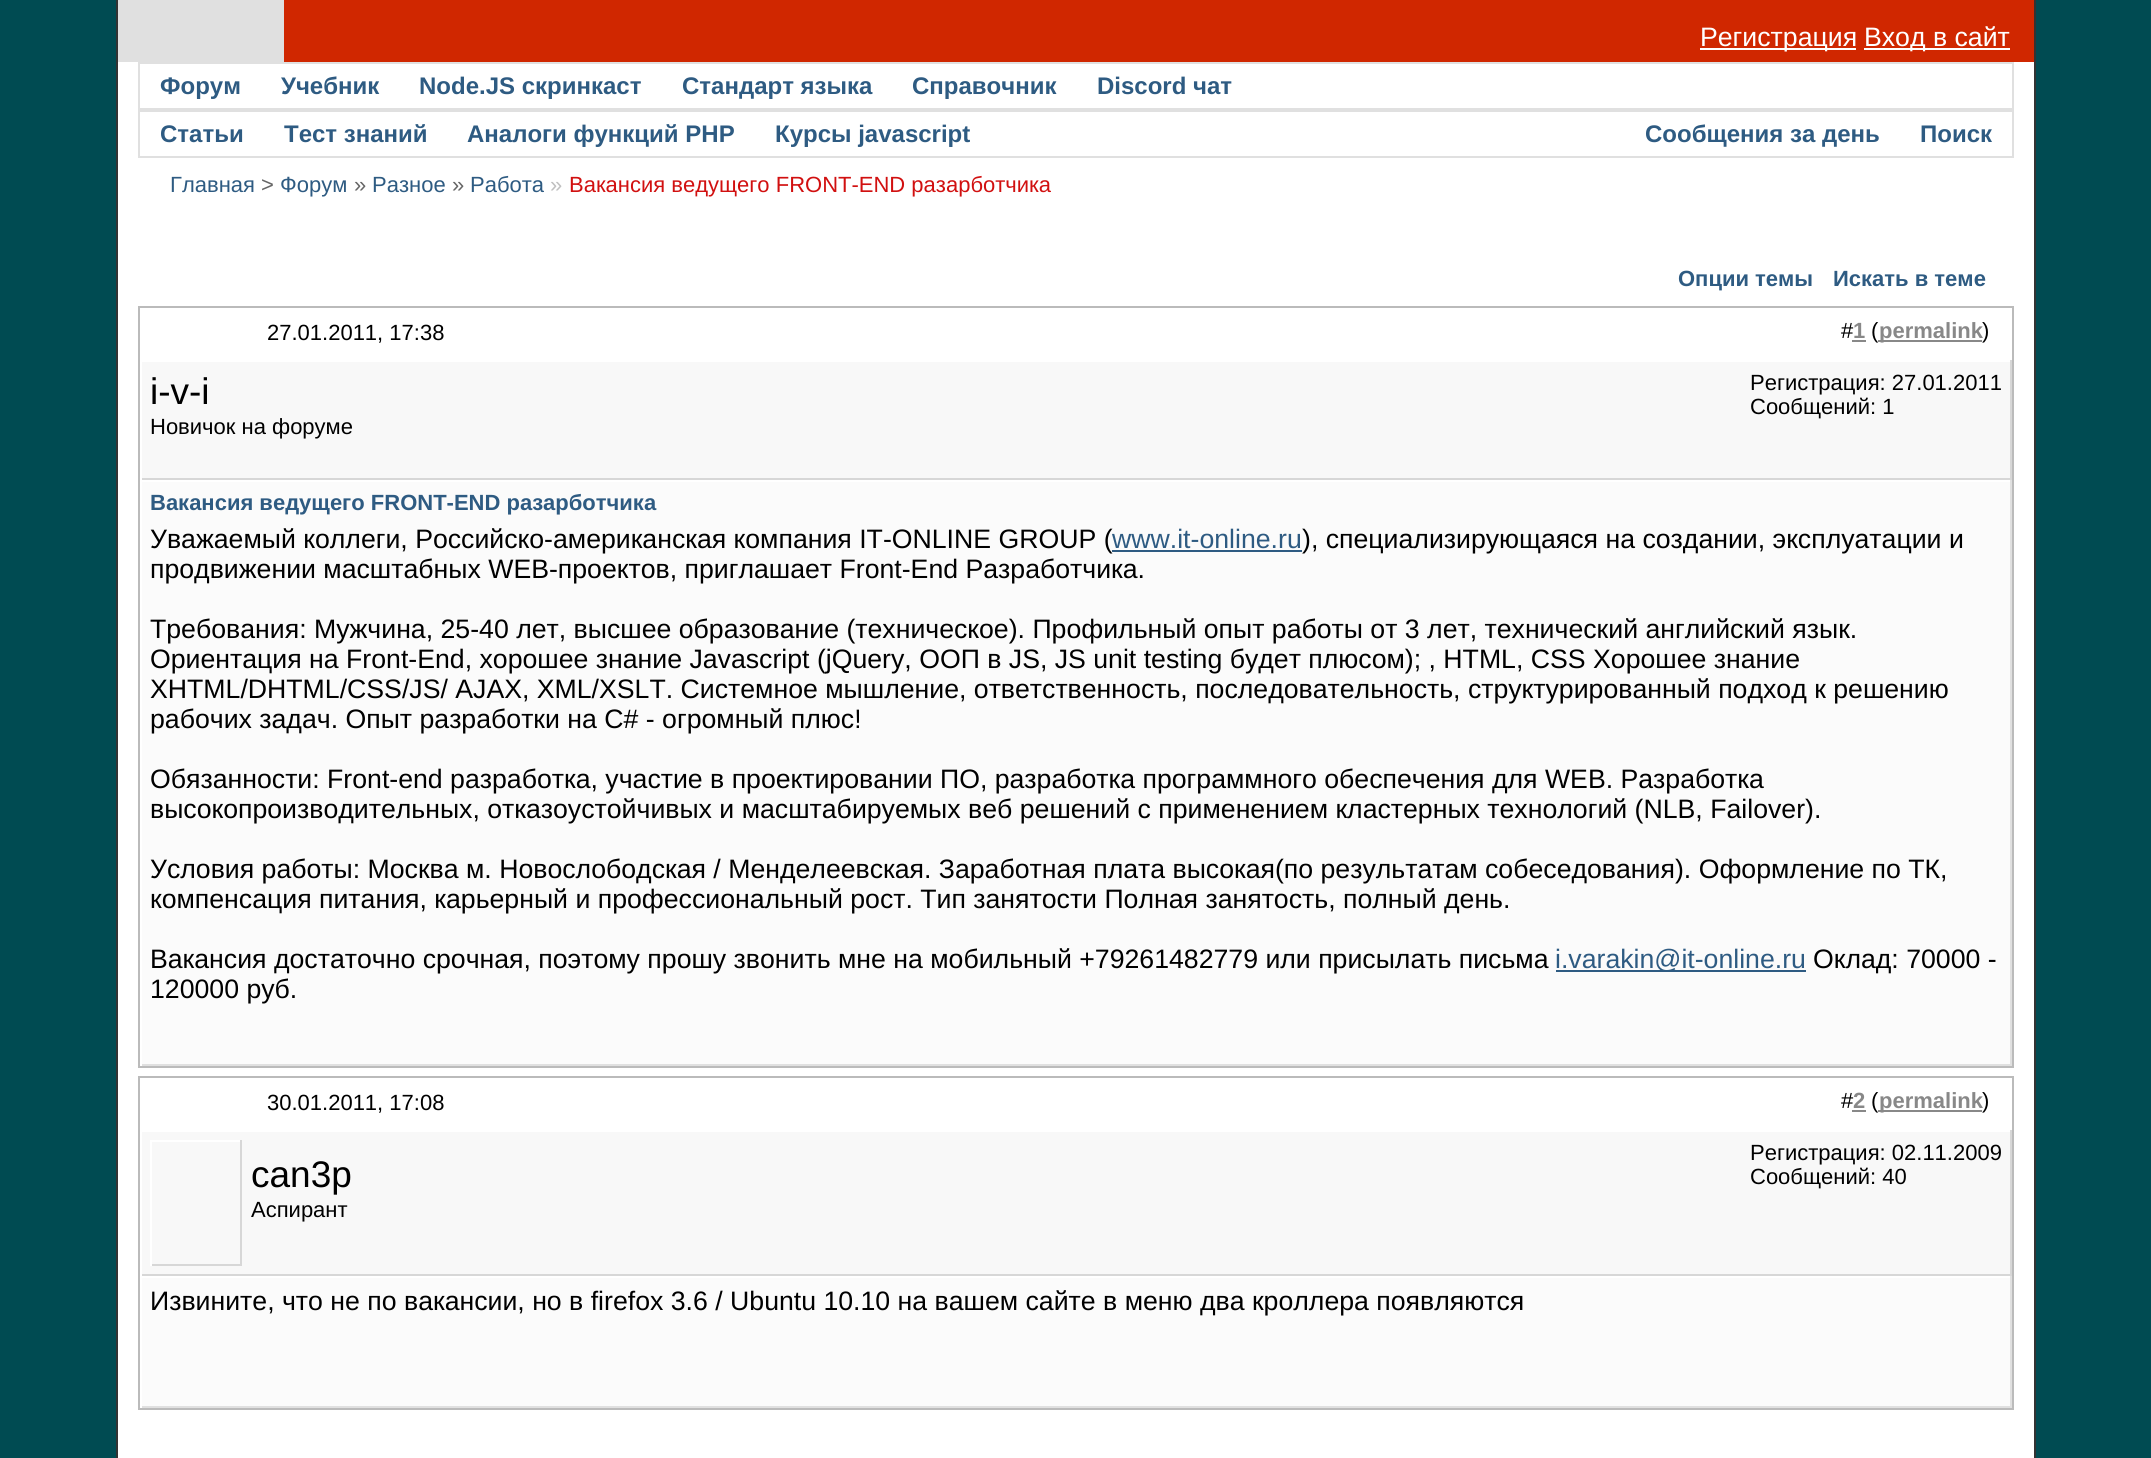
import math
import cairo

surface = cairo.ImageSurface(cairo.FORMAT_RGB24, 2151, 1458)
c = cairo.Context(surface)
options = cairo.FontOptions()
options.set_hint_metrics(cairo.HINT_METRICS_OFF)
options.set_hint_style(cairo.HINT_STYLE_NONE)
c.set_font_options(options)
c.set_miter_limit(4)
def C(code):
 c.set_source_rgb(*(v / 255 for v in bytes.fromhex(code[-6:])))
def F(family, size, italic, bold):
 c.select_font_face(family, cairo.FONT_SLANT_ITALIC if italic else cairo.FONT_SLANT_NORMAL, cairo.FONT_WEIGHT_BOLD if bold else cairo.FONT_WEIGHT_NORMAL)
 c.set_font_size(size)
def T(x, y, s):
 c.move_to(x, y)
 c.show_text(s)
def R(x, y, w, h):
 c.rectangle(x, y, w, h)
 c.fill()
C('004b52')
c.paint()
C('ffffff')
R(118,62,1916,1396)
C('333333')
R(2034,0,2,1458)
R(116,0,2,1458)
C('e0e0e0')
R(118,0,166,62)
C('d02700')
R(284,0,1750,62)
C('ffffff')
R(1700,48,156,2)
F('Liberation Sans',26.67,0,0)
T(1700,46,'Регистрация')
R(1864,48,146,2)
T(1864,46,'Вход в сайт')
c.rectangle(139,63,1874,46)
C('e0e0e0')
c.stroke()
F('Liberation Sans',24,0,1)
C('2e5b82')
T(160,94,'Форум')
T(281,94,'Учебник')
T(419,94,'Node.JS скринкаст')
T(682,94,'Стандарт языка')
T(912,94,'Справочник')
T(1097,94,'Discord чат')
c.rectangle(139,111,1874,46)
C('e0e0e0')
c.stroke()
C('2e5b82')
T(160,142,'Статьи')
T(284,142,'Тест знаний')
T(467,142,'Аналоги функций PHP')
T(775,142,'Курсы javascript')
T(1645,142,'Сообщения за день')
T(1920,142,'Поиск')
F('Liberation Sans',22,0,0)
T(170,192,'Главная')
C('666666')
T(261,192,'>')
C('2e5b82')
T(280,192,'Форум')
C('666666')
T(354,192,'»')
C('2e5b82')
T(372,192,'Разное')
C('666666')
T(452,192,'»')
C('2e5b82')
T(470,192,'Работа')
C('c0c0c0')
T(550,192,'»')
C('d11010')
T(569,192,'Вакансия ведущего FRONT-END разарботчика')
F('Liberation Sans',22,0,1)
C('2e5b82')
T(1678,286,'Опции темы')
T(1833,286,'Искать в теме')
c.rectangle(139,307,1874,760)
C('bbbbbb')
c.stroke()
F('Liberation Sans',22,0,0)
C('000000')
T(267,340,'27.01.2011, 17:38')
T(1841,338,'#')
F('Liberation Sans',22,0,1)
C('888888')
T(1853,338,'1')
R(1852,340,14,2)
F('Liberation Sans',22,0,0)
C('000000')
T(1871,338,'(')
C('888888')
R(1878,340,104,2)
F('Liberation Sans',22,0,1)
T(1879,338,'permalink')
F('Liberation Sans',22,0,0)
C('000000')
T(1982,338,')')
C('f8f8f8')
R(142,362,1868,116)
C('d7d7d7')
R(2010,360,2,120)
R(140,478,1872,2)
C('ffffff')
R(140,478,2,2)
F('Liberation Sans',37,0,0)
C('000000')
T(150,404,'i-v-i')
F('Liberation Sans',22,0,0)
T(150,434,'Новичок на форуме')
T(1750,390,'Регистрация: 27.01.2011')
T(1750,414,'Сообщений: 1')
C('fbfbfb')
R(142,482,1868,582)
C('e0e0e0')
R(2010,480,2,586)
R(140,1064,1872,2)
C('ffffff')
R(140,1064,2,2)
F('Liberation Sans',22,0,1)
C('2e5b82')
T(150,510,'Вакансия ведущего FRONT-END разарботчика')
F('Liberation Sans',26.67,0,0)
C('000000')
T(150,548,'Уважаемый коллеги, Российско-американская компания IT-ONLINE GROUP (')
C('2e5b82')
T(1112,548,'www.it-online.ru')
R(1112,550,190,2)
C('000000')
T(1302,548,'), специализирующаяся на создании, эксплуатации и')
T(150,578,'продвижении масштабных WEB-проектов, приглашает Front-End Разработчика.')
T(150,638,'Требования: Мужчина, 25-40 лет, высшее образование (техническое). Профильный опыт работы от 3 лет, технический английский язык.')
T(150,668,'Ориентация на Front-End, хорошее знание Javascript (jQuery, ООП в JS, JS unit testing будет плюсом); , HTML, CSS Хорошее знание')
T(150,698,'XHTML/DHTML/CSS/JS/ AJAX, XML/XSLT. Системное мышление, ответственность, последовательность, структурированный подход к решению')
T(150,728,'рабочих задач. Опыт разработки на С# - огромный плюс!')
T(150,788,'Обязанности: Front-end разработка, участие в проектировании ПО, разработка программного обеспечения для WEB. Разработка')
T(150,818,'высокопроизводительных, отказоустойчивых и масштабируемых веб решений с применением кластерных технологий (NLB, Failover).')
T(150,878,'Условия работы: Москва м. Новослободская / Менделеевская. Заработная плата высокая(по результатам собеседования). Оформление по ТК,')
T(150,908,'компенсация питания, карьерный и профессиональный рост. Тип занятости Полная занятость, полный день.')
T(150,968,'Вакансия достаточно срочная, поэтому прошу звонить мне на мобильный +79261482779 или присылать письма')
C('2e5b82')
R(1556,970,250,2)
T(1555,968,'i.varakin@it-online.ru')
C('000000')
T(1813,968,'Оклад: 70000 -')
T(150,998,'120000 руб.')
c.rectangle(139,1077,1874,332)
C('bbbbbb')
c.stroke()
F('Liberation Sans',22,0,0)
C('000000')
T(267,1110,'30.01.2011, 17:08')
T(1841,1108,'#')
F('Liberation Sans',22,0,1)
C('888888')
T(1853,1108,'2')
R(1852,1110,14,2)
F('Liberation Sans',22,0,0)
C('000000')
T(1871,1108,'(')
C('888888')
R(1878,1110,104,2)
F('Liberation Sans',22,0,1)
T(1879,1108,'permalink')
F('Liberation Sans',22,0,0)
C('000000')
T(1982,1108,')')
C('f8f8f8')
R(142,1132,1868,142)
C('d7d7d7')
R(2010,1130,2,146)
R(140,1274,1872,2)
C('ffffff')
R(140,1274,2,2)
R(150,1140,92,2)
C('d7d7d7')
R(240,1140,2,126)
R(150,1264,92,2)
C('ffffff')
R(150,1140,2,126)
F('Liberation Sans',37,0,0)
C('000000')
T(251,1187,'can3p')
F('Liberation Sans',22,0,0)
T(251,1217,'Аспирант')
T(1750,1160,'Регистрация: 02.11.2009')
T(1750,1184,'Сообщений: 40')
C('fbfbfb')
R(142,1278,1868,128)
C('e0e0e0')
R(2010,1276,2,132)
R(140,1406,1872,2)
C('ffffff')
R(140,1406,2,2)
F('Liberation Sans',26.67,0,0)
C('000000')
T(150,1310,'Извините, что не по вакансии, но в firefox 3.6 / Ubuntu 10.10 на вашем сайте в меню два кроллера появляются')
surface.write_to_png('o.png')
